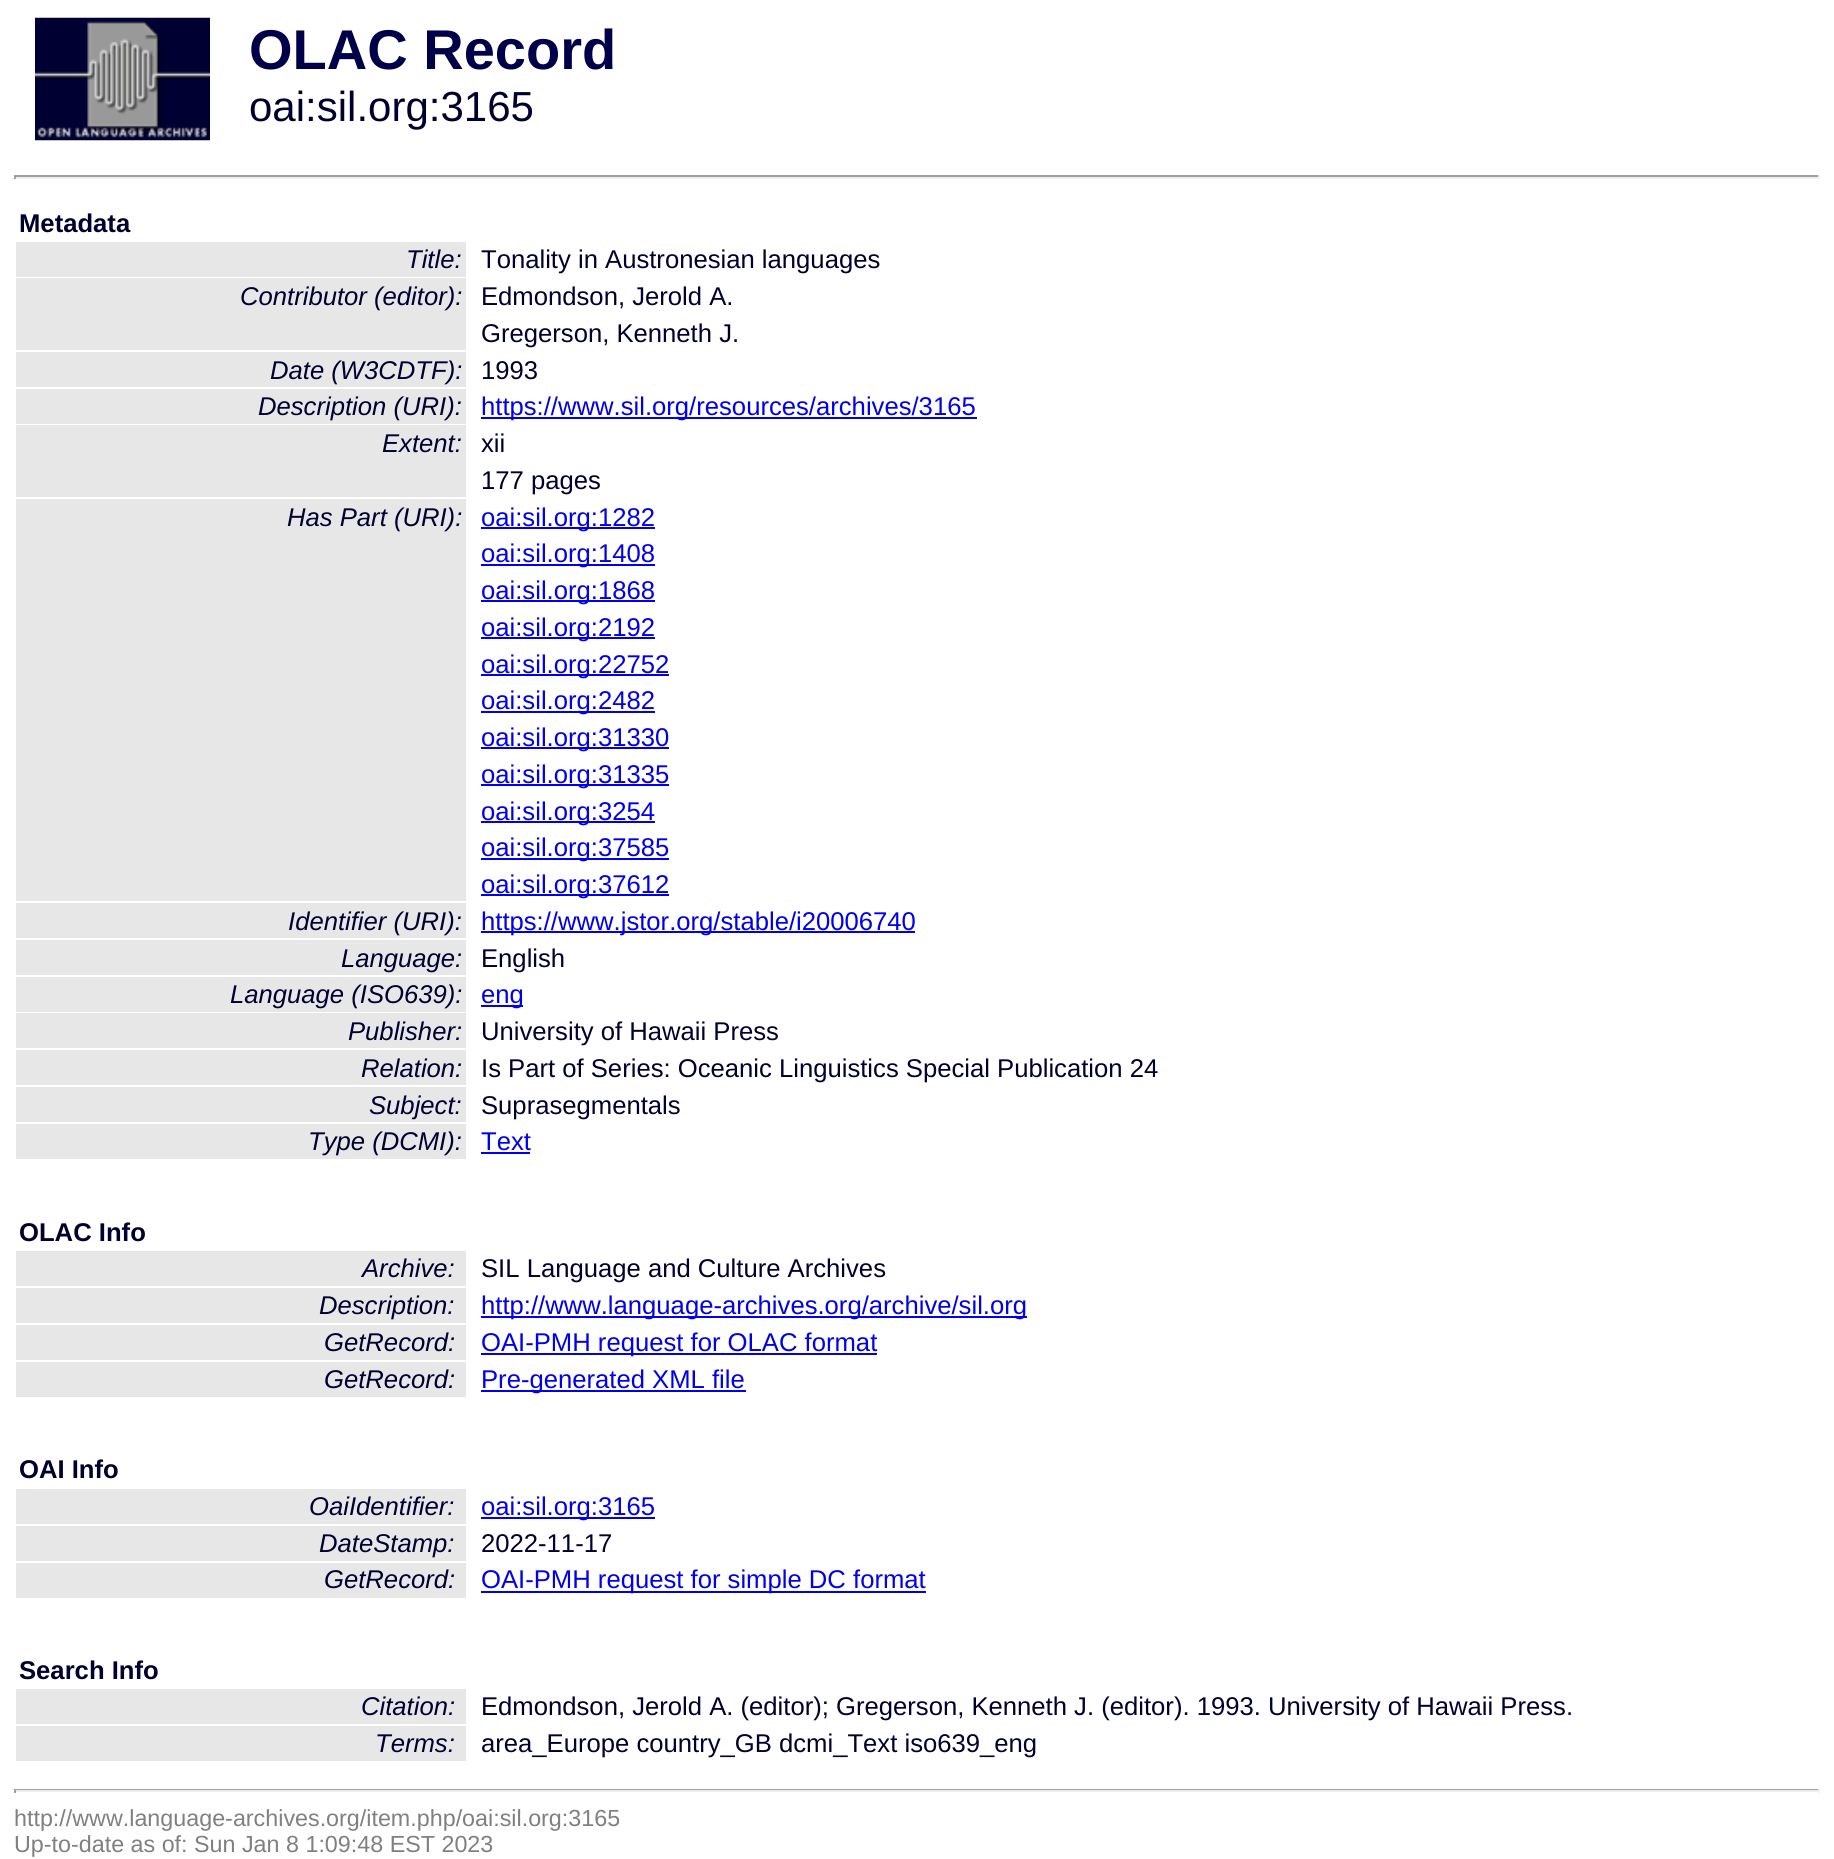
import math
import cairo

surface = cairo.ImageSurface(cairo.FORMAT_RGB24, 1834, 1859)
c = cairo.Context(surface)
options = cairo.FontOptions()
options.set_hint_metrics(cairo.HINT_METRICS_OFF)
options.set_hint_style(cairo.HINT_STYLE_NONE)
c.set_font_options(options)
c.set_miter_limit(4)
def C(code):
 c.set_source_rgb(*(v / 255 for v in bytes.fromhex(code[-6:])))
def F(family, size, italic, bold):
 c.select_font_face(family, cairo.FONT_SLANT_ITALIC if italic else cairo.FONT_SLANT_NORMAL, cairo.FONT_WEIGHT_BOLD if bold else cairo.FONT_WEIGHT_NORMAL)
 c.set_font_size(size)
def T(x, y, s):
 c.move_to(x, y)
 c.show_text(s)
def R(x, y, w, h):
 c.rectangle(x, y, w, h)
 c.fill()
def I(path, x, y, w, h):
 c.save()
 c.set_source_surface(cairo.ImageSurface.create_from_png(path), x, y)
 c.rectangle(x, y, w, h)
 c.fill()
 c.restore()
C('ffffff')
c.paint()
I('1.png',35,17,175,124)
F('Liberation Sans',56,0,1)
C('00004a')
T(249,69,'OLAC Record')
F('Liberation Sans',42,0,0)
C('000030')
T(249,121,'oai:sil.org:3165')
C('9f9f9f')
R(14,175,1806,2)
C('eeeeee')
R(1818,175,2,4)
R(14,177,1806,2)
C('9f9f9f')
R(14,175,2,4)
F('Liberation Sans',25.65,0,1)
C('000030')
T(19,232,'Metadata')
C('e7e7e7')
R(16,242,450,35)
F('Liberation Sans',25.65,1,0)
C('000030')
T(406,268,'Title:')
F('Liberation Sans',25.65,0,0)
T(481,268,'Tonality in Austronesian languages')
C('e7e7e7')
R(16,278,450,72)
F('Liberation Sans',25.65,1,0)
C('000030')
T(240,305,'Contributor (editor):')
F('Liberation Sans',25.65,0,0)
T(481,305,'Edmondson, Jerold A.')
T(481,342,'Gregerson, Kenneth J.')
C('e7e7e7')
R(16,352,450,35)
F('Liberation Sans',25.65,1,0)
C('000030')
T(270,379,'Date (W3CDTF):')
F('Liberation Sans',25.65,0,0)
T(481,379,'1993')
C('e7e7e7')
R(16,389,450,35)
F('Liberation Sans',25.65,1,0)
C('000030')
T(258,415,'Description (URI):')
C('0000ee')
R(481,417,496,2)
F('Liberation Sans',25.65,0,0)
T(481,415,'https://www.sil.org/resources/archives/3165')
C('e7e7e7')
R(16,425,450,72)
F('Liberation Sans',25.65,1,0)
C('000030')
T(382,452,'Extent:')
F('Liberation Sans',25.65,0,0)
T(481,452,'xii')
T(481,489,'177 pages')
C('e7e7e7')
R(16,499,450,402)
F('Liberation Sans',25.65,1,0)
C('000030')
T(287,526,'Has Part (URI):')
C('0000ee')
R(481,527,174,2)
F('Liberation Sans',25.65,0,0)
T(481,526,'oai:sil.org:1282')
R(481,564,174,2)
T(481,562,'oai:sil.org:1408')
R(481,600,174,2)
T(481,599,'oai:sil.org:1868')
R(481,637,174,2)
T(481,636,'oai:sil.org:2192')
R(481,674,188,2)
T(481,673,'oai:sil.org:22752')
R(481,711,174,2)
T(481,709,'oai:sil.org:2482')
R(481,747,188,2)
T(481,746,'oai:sil.org:31330')
R(481,784,188,2)
T(481,783,'oai:sil.org:31335')
R(481,821,174,2)
T(481,820,'oai:sil.org:3254')
R(481,858,188,2)
T(481,856,'oai:sil.org:37585')
R(481,894,188,2)
T(481,893,'oai:sil.org:37612')
C('e7e7e7')
R(16,903,450,35)
F('Liberation Sans',25.65,1,0)
C('000030')
T(288,930,'Identifier (URI):')
C('0000ee')
R(481,931,434,2)
F('Liberation Sans',25.65,0,0)
T(481,930,'https://www.jstor.org/stable/i20006740')
C('e7e7e7')
R(16,940,450,35)
F('Liberation Sans',25.65,1,0)
C('000030')
T(341,967,'Language:')
F('Liberation Sans',25.65,0,0)
T(481,967,'English')
C('e7e7e7')
R(16,977,450,35)
F('Liberation Sans',25.65,1,0)
C('000030')
T(230,1003,'Language (ISO639):')
C('0000ee')
R(481,1005,42,2)
F('Liberation Sans',25.65,0,0)
T(481,1003,'eng')
C('e7e7e7')
R(16,1013,450,35)
F('Liberation Sans',25.65,1,0)
C('000030')
T(348,1040,'Publisher:')
F('Liberation Sans',25.65,0,0)
T(481,1040,'University of Hawaii Press')
C('e7e7e7')
R(16,1050,450,35)
F('Liberation Sans',25.65,1,0)
C('000030')
T(361,1077,'Relation:')
F('Liberation Sans',25.65,0,0)
T(481,1077,'Is Part of Series: Oceanic Linguistics Special Publication 24')
C('e7e7e7')
R(16,1087,450,35)
F('Liberation Sans',25.65,1,0)
C('000030')
T(369,1114,'Subject:')
F('Liberation Sans',25.65,0,0)
T(481,1114,'Suprasegmentals')
C('e7e7e7')
R(16,1124,450,35)
F('Liberation Sans',25.65,1,0)
C('000030')
T(308,1150,'Type (DCMI):')
F('Liberation Sans',25.65,0,0)
C('0000ee')
T(481,1150,'Text')
R(481,1152,49,2)
F('Liberation Sans',25.65,0,1)
C('000030')
T(19,1241,'OLAC Info')
C('e7e7e7')
R(16,1251,450,35)
F('Liberation Sans',25.65,1,0)
C('000030')
T(362,1277,'Archive:')
F('Liberation Sans',25.65,0,0)
T(481,1277,'SIL Language and Culture Archives')
C('e7e7e7')
R(16,1288,450,35)
F('Liberation Sans',25.65,1,0)
C('000030')
T(319,1314,'Description:')
C('0000ee')
R(481,1316,546,2)
F('Liberation Sans',25.65,0,0)
T(481,1314,'http://www.language-archives.org/archive/sil.org')
C('e7e7e7')
R(16,1325,450,35)
F('Liberation Sans',25.65,1,0)
C('000030')
T(324,1351,'GetRecord:')
C('0000ee')
R(481,1353,396,2)
F('Liberation Sans',25.65,0,0)
T(481,1351,'OAI-PMH request for OLAC format')
C('e7e7e7')
R(16,1362,450,35)
F('Liberation Sans',25.65,1,0)
C('000030')
T(324,1388,'GetRecord:')
C('0000ee')
R(481,1390,265,2)
F('Liberation Sans',25.65,0,0)
T(481,1388,'Pre-generated XML file')
F('Liberation Sans',25.65,0,1)
C('000030')
T(19,1478,'OAI Info')
C('e7e7e7')
R(16,1489,450,35)
F('Liberation Sans',25.65,1,0)
C('000030')
T(309,1515,'OaiIdentifier:')
C('0000ee')
R(481,1517,174,2)
F('Liberation Sans',25.65,0,0)
T(481,1515,'oai:sil.org:3165')
C('e7e7e7')
R(16,1526,450,35)
F('Liberation Sans',25.65,1,0)
C('000030')
T(319,1552,'DateStamp:')
F('Liberation Sans',25.65,0,0)
T(481,1552,'2022-11-17')
C('e7e7e7')
R(16,1563,450,35)
F('Liberation Sans',25.65,1,0)
C('000030')
T(324,1588,'GetRecord:')
C('0000ee')
R(481,1591,445,2)
F('Liberation Sans',25.65,0,0)
T(481,1588,'OAI-PMH request for simple DC format')
F('Liberation Sans',25.65,0,1)
C('000030')
T(19,1679,'Search Info')
C('e7e7e7')
R(16,1689,450,35)
F('Liberation Sans',25.65,1,0)
C('000030')
T(361,1715,'Citation:')
F('Liberation Sans',25.65,0,0)
T(481,1715,'Edmondson, Jerold A. (editor); Gregerson, Kenneth J. (editor). 1993. University of Hawaii Press.')
C('e7e7e7')
R(16,1726,450,35)
F('Liberation Sans',25.65,1,0)
C('000030')
T(375,1752,'Terms:')
F('Liberation Sans',25.65,0,0)
T(481,1752,'area_Europe country_GB dcmi_Text iso639_eng')
C('9f9f9f')
R(14,1789,1806,1)
C('eeeeee')
R(1818,1789,2,4)
R(14,1790,1806,2)
C('9f9f9f')
R(14,1789,2,4)
F('Liberation Sans',23.3,0,0)
C('808080')
T(14,1826,'http://www.language-archives.org/item.php/oai:sil.org:3165')
T(14,1852,'Up-to-date as of: Sun Jan 8 1:09:48 EST 2023')
surface.write_to_png('o.png')
